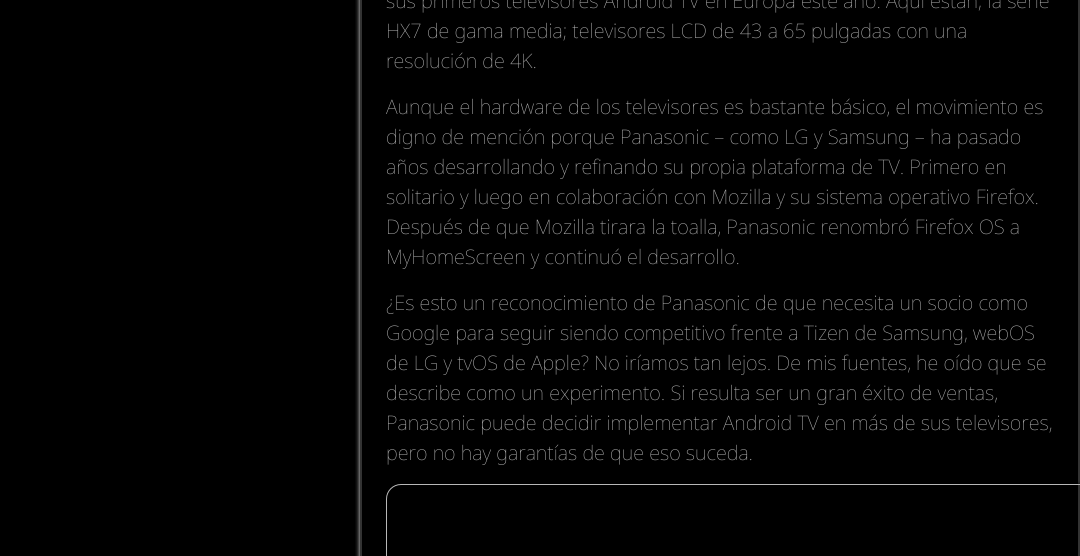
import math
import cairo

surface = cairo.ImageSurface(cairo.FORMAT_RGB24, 1080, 556)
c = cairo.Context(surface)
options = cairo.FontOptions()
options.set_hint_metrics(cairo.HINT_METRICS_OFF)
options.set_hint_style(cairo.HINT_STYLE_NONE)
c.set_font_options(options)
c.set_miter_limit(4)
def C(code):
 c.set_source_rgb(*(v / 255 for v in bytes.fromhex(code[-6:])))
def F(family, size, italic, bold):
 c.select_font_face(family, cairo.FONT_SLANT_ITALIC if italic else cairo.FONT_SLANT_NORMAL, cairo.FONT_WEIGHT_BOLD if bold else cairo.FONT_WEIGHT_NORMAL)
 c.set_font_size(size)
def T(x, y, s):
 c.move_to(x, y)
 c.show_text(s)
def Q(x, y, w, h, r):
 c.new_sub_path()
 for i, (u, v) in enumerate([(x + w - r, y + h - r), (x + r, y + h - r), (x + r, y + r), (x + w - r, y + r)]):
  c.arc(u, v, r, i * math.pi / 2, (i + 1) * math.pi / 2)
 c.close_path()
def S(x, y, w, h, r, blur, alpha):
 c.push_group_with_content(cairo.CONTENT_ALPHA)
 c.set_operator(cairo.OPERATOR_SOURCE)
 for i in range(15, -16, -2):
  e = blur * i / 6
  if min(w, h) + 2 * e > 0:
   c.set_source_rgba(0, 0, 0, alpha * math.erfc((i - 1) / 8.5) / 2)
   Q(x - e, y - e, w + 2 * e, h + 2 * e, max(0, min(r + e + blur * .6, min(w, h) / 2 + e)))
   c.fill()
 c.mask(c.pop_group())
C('000000')
c.paint()
c.save()
c.rectangle(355,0,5,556)
c.clip()
C('eeeeee')
S(360,-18,720,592,10,2.5,1)
c.restore()
c.rectangle(361,-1,718,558)
C('333333')
c.stroke()
F('Noto Sans Thin',20,0,0)
C('b8b8b8')
T(386,8,'sus primeros televisores Android TV en Europa este año. Aquí están; la serie')
T(386,38,'HX7 de gama media; televisores LCD de 43 a 65 pulgadas con una')
T(386,68,'resolución de 4K.')
T(386,114,'Aunque el hardware de los televisores es bastante básico, el movimiento es')
T(386,144,'digno de mención porque Panasonic – como LG y Samsung – ha pasado')
T(386,174,'años desarrollando y refinando su propia plataforma de TV. Primero en')
T(386,204,'solitario y luego en colaboración con Mozilla y su sistema operativo Firefox.')
T(386,234,'Después de que Mozilla tirara la toalla, Panasonic renombró Firefox OS a')
T(386,264,'MyHomeScreen y continuó el desarrollo.')
T(386,310,'¿Es esto un reconocimiento de Panasonic de que necesita un socio como')
T(386,340,'Google para seguir siendo competitivo frente a Tizen de Samsung, webOS')
T(386,370,'de LG y tvOS de Apple? No iríamos tan lejos. De mis fuentes, he oído que se')
T(386,400,'describe como un experimento. Si resulta ser un gran éxito de ventas,')
T(386,430,'Panasonic puede decidir implementar Android TV en más de sus televisores,')
T(386,460,'pero no hay garantías de que eso suceda.')
c.save()
c.set_fill_rule(cairo.FILL_RULE_EVEN_ODD)
c.new_path()
c.move_to(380,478)
c.line_to(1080,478)
c.line_to(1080,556)
c.line_to(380,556)
c.close_path()
c.move_to(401,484)
c.line_to(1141,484)
c.curve_to(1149.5,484,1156,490.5,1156,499)
c.line_to(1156,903)
c.curve_to(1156,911.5,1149.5,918,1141,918)
c.line_to(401,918)
c.curve_to(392.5,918,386,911.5,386,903)
c.line_to(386,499)
c.curve_to(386,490.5,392.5,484,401,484)
c.close_path()
c.clip()
C('000000')
S(386,484,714,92,15,1.5,1)
c.restore()
Q(386.5,484.5,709,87,14.5)
c.set_line_width(1)
c.stroke()
surface.write_to_png('o.png')
